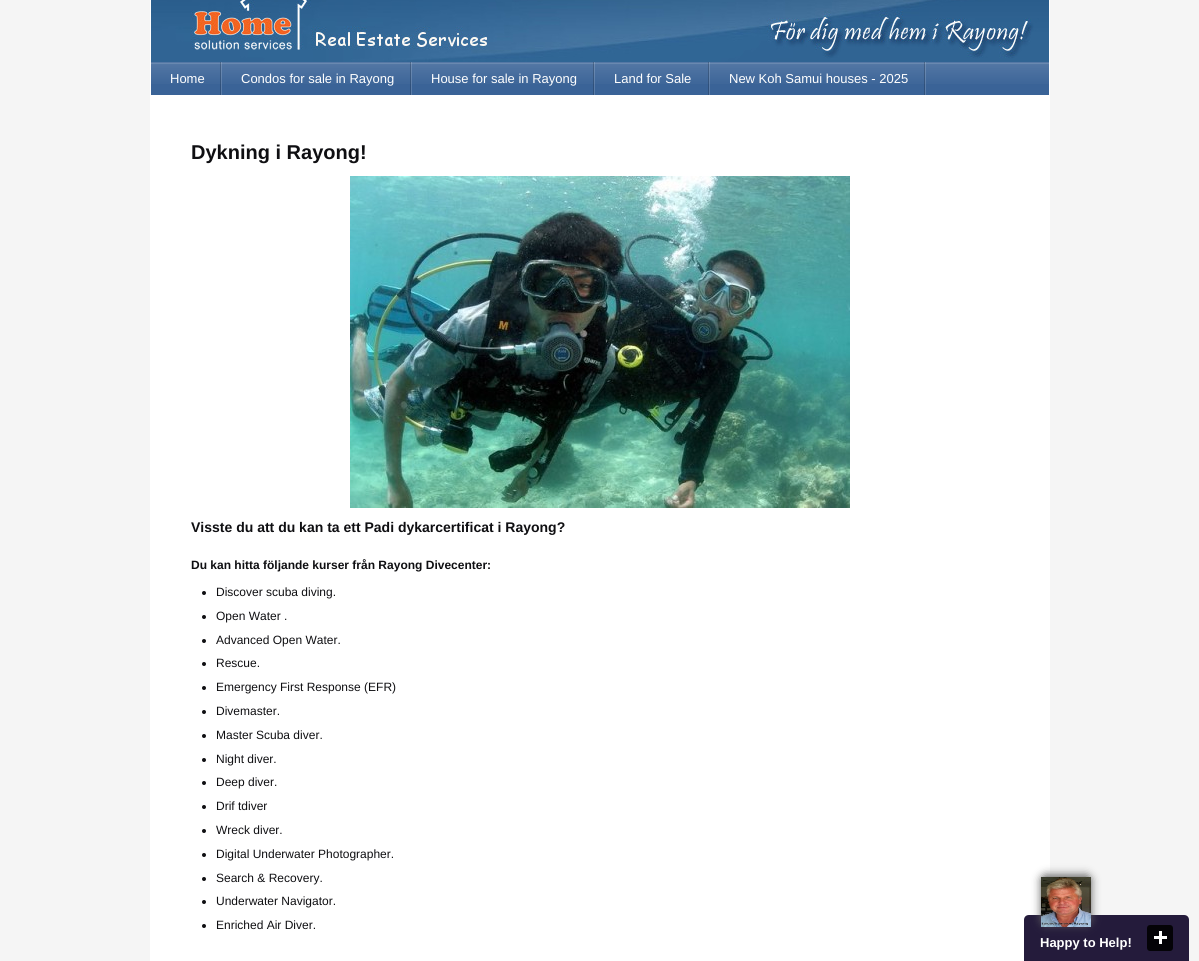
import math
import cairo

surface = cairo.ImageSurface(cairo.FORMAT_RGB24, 1199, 961)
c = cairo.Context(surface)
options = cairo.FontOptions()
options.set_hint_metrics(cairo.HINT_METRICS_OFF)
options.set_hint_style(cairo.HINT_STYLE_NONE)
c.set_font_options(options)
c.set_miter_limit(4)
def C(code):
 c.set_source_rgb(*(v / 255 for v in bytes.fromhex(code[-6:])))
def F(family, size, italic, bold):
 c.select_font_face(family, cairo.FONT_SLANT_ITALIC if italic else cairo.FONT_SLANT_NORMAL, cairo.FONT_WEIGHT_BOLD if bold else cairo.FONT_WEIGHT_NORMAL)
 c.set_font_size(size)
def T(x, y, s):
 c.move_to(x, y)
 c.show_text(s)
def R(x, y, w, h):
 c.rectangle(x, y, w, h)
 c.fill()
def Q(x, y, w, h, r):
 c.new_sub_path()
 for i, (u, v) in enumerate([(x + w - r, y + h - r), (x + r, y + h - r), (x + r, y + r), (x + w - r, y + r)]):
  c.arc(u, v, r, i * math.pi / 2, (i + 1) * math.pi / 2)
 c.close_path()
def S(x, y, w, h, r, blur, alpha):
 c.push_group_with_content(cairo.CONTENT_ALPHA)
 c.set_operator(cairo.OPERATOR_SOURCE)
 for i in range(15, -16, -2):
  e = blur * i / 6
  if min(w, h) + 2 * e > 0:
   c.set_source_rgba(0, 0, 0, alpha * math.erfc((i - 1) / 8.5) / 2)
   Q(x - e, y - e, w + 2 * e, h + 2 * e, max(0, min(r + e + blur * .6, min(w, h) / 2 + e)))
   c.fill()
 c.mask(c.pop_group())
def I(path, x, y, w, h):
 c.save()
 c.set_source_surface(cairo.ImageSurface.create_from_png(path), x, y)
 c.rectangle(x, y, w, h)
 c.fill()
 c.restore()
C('f5f5f5')
c.paint()
C('ffffff')
R(150,0,900,961)
I('1.png',151,0,898,62)
C('3a6397')
R(926,62,123,33)
I('2.png',926,62,123,22)
R(151,62,775,33)
I('3.png',151,62,71,22)
I('4.png',220,62,2,33)
F('Liberation Sans',13,0,0)
C('ffffff')
T(170,83,'Home')
I('5.png',222,62,190,22)
I('4.png',410,62,2,33)
T(241,83,'Condos for sale in Rayong')
I('6.png',412,62,183,22)
I('4.png',593,62,2,33)
T(431,83,'House for sale in Rayong')
I('7.png',595,62,115,22)
I('4.png',708,62,2,33)
T(614,83,'Land for Sale')
I('8.png',710,62,216,22)
I('4.png',924,62,2,33)
T(729,83,'New Koh Samui houses - 2025')
F('Liberation Sans',20,0,1)
C('0f0f12')
T(191,159,'Dykning i Rayong!')
I('9.png',350,176,500,332)
F('Liberation Sans',14,0,1)
T(191,532,'Visste du att du kan ta ett Padi dykarcertificat i Rayong?')
F('Liberation Sans',12,0,1)
T(191,569,'Du kan hitta följande kurser från Rayong Divecenter:')
c.new_path()
c.arc(204,593,2,0,2 * math.pi)
c.fill()
F('Liberation Sans',12,0,0)
T(216,596,'Discover scuba diving.')
c.new_path()
c.arc(204,617,2,0,2 * math.pi)
c.fill()
T(216,620,'Open Water .')
c.new_path()
c.arc(204,641,2,0,2 * math.pi)
c.fill()
T(216,644,'Advanced Open Water.')
c.new_path()
c.arc(204,664,2,0,2 * math.pi)
c.fill()
T(216,667,'Rescue.')
c.new_path()
c.arc(204,688,2,0,2 * math.pi)
c.fill()
T(216,691,'Emergency First Response (EFR)')
c.new_path()
c.arc(204,712,2,0,2 * math.pi)
c.fill()
T(216,715,'Divemaster.')
c.new_path()
c.arc(204,736,2,0,2 * math.pi)
c.fill()
T(216,739,'Master Scuba diver.')
c.new_path()
c.arc(204,760,2,0,2 * math.pi)
c.fill()
T(216,763,'Night diver.')
c.new_path()
c.arc(204,783,2,0,2 * math.pi)
c.fill()
T(216,786,'Deep diver.')
c.new_path()
c.arc(204,807,2,0,2 * math.pi)
c.fill()
T(216,810,'Drif tdiver')
c.new_path()
c.arc(204,831,2,0,2 * math.pi)
c.fill()
T(216,834,'Wreck diver.')
c.new_path()
c.arc(204,855,2,0,2 * math.pi)
c.fill()
T(216,858,'Digital Underwater Photographer.')
c.new_path()
c.arc(204,879,2,0,2 * math.pi)
c.fill()
T(216,882,'Search & Recovery.')
c.new_path()
c.arc(204,902,2,0,2 * math.pi)
c.fill()
T(216,905,'Underwater Navigator.')
c.new_path()
c.arc(204,926,2,0,2 * math.pi)
c.fill()
T(216,929,'Enriched Air Diver.')
C('241b3b')
c.new_path()
c.move_to(1029,915)
c.line_to(1184,915)
c.curve_to(1187,915,1189,917,1189,920)
c.line_to(1189,961)
c.line_to(1024,961)
c.line_to(1024,920)
c.curve_to(1024,917,1026,915,1029,915)
c.close_path()
c.fill()
C('5f5f5e')
S(1041,875,50,50,5,4.5,1)
I('10.png',1041,877,50,50)
C('040307')
Q(1147,925,26,26,3)
c.fill()
I('11.png',1154,931,13,13)
F('Liberation Sans',13,0,1)
C('ffffff')
T(1040,947,'Happy to Help!')
surface.write_to_png('o.png')
